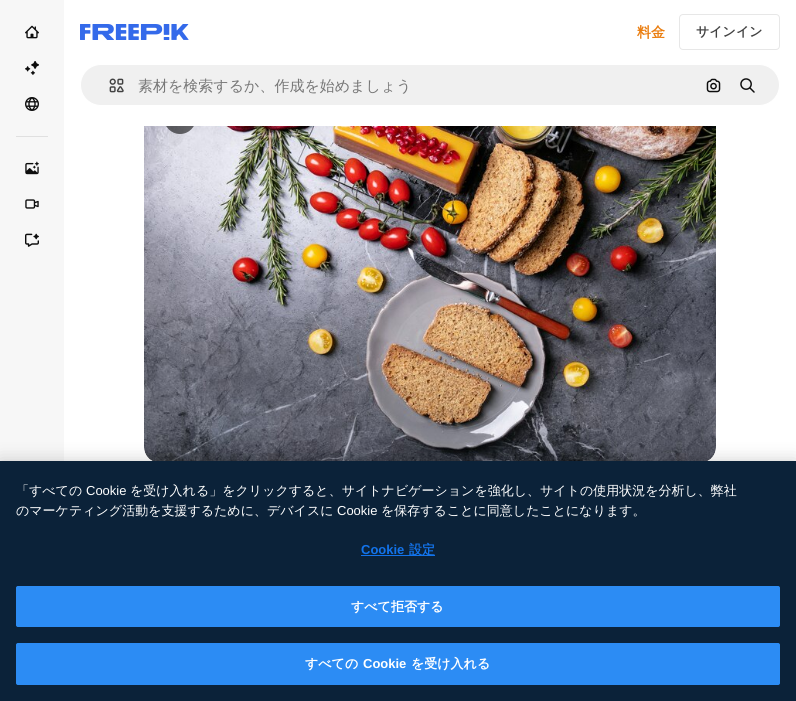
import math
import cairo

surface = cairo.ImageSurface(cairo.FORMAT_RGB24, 796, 701)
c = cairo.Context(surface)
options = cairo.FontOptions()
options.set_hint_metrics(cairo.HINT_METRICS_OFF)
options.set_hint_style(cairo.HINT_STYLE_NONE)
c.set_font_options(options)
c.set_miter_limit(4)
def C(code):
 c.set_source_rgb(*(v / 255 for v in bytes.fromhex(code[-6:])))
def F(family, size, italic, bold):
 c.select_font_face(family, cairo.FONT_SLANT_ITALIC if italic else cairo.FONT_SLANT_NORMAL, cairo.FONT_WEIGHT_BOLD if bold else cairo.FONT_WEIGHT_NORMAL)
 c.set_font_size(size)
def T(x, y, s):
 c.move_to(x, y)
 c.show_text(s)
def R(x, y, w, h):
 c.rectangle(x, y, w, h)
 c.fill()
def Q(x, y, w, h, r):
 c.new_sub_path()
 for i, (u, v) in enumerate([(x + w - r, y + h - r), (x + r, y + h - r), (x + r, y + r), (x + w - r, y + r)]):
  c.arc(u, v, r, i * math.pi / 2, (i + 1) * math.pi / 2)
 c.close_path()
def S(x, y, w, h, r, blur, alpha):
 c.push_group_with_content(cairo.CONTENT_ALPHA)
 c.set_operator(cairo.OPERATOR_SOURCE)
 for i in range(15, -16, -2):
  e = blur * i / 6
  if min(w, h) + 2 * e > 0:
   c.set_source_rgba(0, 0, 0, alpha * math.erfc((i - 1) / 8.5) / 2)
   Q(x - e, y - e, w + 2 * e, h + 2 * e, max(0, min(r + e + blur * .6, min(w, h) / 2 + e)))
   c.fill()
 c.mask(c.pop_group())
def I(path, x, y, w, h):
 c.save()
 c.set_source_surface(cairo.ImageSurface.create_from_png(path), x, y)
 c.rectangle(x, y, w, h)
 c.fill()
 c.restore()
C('ffffff')
c.paint()
C('f7f7f7')
R(0,0,64,461)
I('1.png',25,25,14,14)
I('2.png',25,61,14,14)
I('3.png',25,97,14,14)
C('e0e0e0')
R(16,136,32,1)
I('4.png',25,161,14,14)
I('5.png',25,199,14,10)
I('6.png',25,233,14,14)
I('11.png',144,126,572,335)
c.set_source_rgba(0.051,0.051,0.051,0.6)
c.arc(180,118,16,0,2 * math.pi)
c.fill()
C('ffffff')
R(164,102,32,24)
I('7.png',80,24,109,16)
F('WenQuanYi Zen Hei',14,0,1)
C('ea7e11')
T(637,37,'料金')
Q(679.5,14.5,100,35,3.5)
C('e7e7e7')
c.set_line_width(1)
c.stroke()
F('WenQuanYi Zen Hei',13,0,1)
C('424242')
T(696,36,'サインイン')
C('f0f0f0')
Q(80.5,64.5,699,41,20.5)
c.fill_preserve()
C('ffffff')
c.stroke()
I('8.png',109,78,15,15)
F('WenQuanYi Zen Hei Medium',15,0,0)
C('777777')
T(138,91,'素材を検索するか、作成を始めましょう')
I('9.png',706,78,15,15)
I('10.png',740,78,15,15)
C('000000')
S(0,461,796,240,0,9,.2)
C('0b2239')
R(0,461,796,240)
F('WenQuanYi Zen Hei Medium',13,0,0)
C('ffffff')
T(16,495,'「すべての')
F('Liberation Sans',13,0,0)
T(86,495,'Cookie')
F('WenQuanYi Zen Hei Medium',13,0,0)
T(130,495,'を受け入れる」をクリックすると、サイトナビゲーションを強化し、サイトの使用状況を分析し、弊社')
T(16,515,'のマーケティング活動を支援するために、デバイスに')
F('Liberation Sans',13,0,0)
T(337,515,'Cookie')
F('WenQuanYi Zen Hei Medium',13,0,0)
T(381,515,'を保存することに同意したことになります。')
F('Liberation Sans',13,0,1)
C('1273eb')
T(361,554,'Cookie')
R(361,555,74,1)
F('WenQuanYi Zen Hei',13,0,1)
T(409,554,'設定')
C('2c8cf4')
Q(16.5,586.5,763,40,1.5)
c.fill_preserve()
c.stroke()
C('ffffff')
T(351,611,'すべて拒否する')
C('2c8cf4')
Q(16.5,643.5,763,41,1.5)
c.fill_preserve()
c.stroke()
C('ffffff')
T(305,668,'すべての')
F('Liberation Sans',13,0,1)
T(363,668,'Cookie')
F('WenQuanYi Zen Hei',13,0,1)
T(411,668,'を受け入れる')
surface.write_to_png('o.png')
